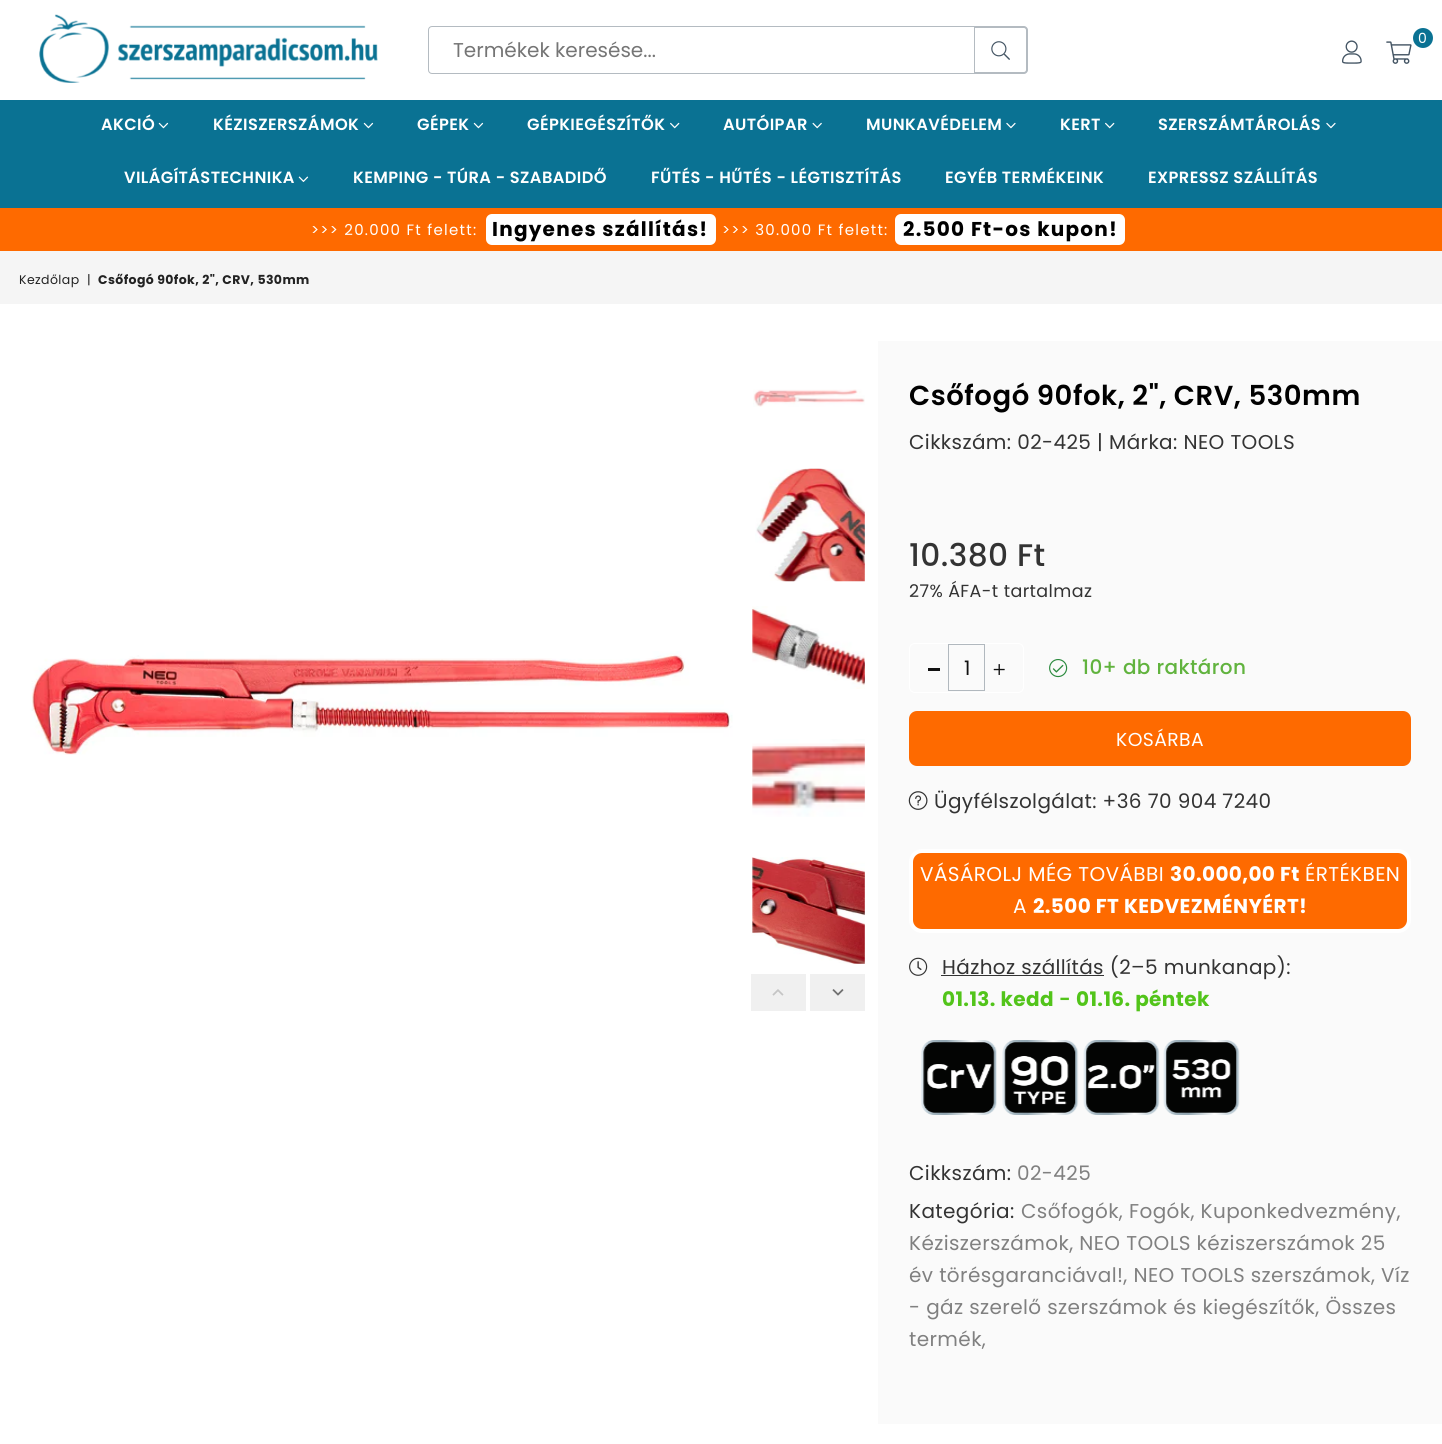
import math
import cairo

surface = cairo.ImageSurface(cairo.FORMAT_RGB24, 1442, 1444)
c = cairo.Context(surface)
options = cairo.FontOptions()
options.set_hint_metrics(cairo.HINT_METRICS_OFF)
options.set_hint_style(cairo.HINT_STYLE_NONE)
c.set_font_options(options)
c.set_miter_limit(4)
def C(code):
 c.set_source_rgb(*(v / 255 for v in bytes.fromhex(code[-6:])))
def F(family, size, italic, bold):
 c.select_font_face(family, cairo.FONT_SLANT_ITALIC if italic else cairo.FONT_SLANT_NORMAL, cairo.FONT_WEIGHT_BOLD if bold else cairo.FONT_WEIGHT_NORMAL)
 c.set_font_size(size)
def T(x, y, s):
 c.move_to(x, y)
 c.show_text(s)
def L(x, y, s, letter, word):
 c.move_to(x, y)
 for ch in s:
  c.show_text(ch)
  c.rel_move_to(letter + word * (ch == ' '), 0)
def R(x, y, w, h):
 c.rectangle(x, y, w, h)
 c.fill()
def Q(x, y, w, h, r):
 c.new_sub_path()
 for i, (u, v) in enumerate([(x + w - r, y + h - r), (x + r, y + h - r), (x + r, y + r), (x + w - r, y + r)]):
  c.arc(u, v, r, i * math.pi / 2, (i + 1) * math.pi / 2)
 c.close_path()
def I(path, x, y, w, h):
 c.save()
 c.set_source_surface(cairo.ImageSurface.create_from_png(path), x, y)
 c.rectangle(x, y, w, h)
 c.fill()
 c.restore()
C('ffffff')
c.paint()
I('1.png',39,14,339,69)
C('0a7293')
c.arc(1423,38,10,0,2 * math.pi)
c.fill()
F('Poppins',14,0,0)
C('ffffff')
L(1418,43,'0',.4,0)
I('2.png',1386,41,26,23)
I('3.png',1342,40,20,24)
c.new_path()
c.move_to(432,26.5)
c.line_to(974.5,26.5)
c.line_to(974.5,73.5)
c.line_to(432,73.5)
c.curve_to(430,73.5,428.5,72,428.5,70)
c.line_to(428.5,30)
c.curve_to(428.5,28,430,26.5,432,26.5)
c.close_path()
C('b4bbc1')
c.set_line_width(1)
c.stroke()
F('Poppins',20,0,0)
C('757575')
T(453,57,'Termékek keresése...')
C('b4bbc1')
c.set_fill_rule(cairo.FILL_RULE_EVEN_ODD)
c.new_path()
c.move_to(975,26)
c.line_to(1024,26)
c.curve_to(1026,26,1028,28,1028,30)
c.line_to(1028,70)
c.curve_to(1028,72,1026,74,1024,74)
c.line_to(975,74)
c.close_path()
c.move_to(975,28)
c.line_to(1024,28)
c.curve_to(1025,28,1026,29,1026,30)
c.line_to(1026,70)
c.curve_to(1026,71,1025,72,1024,72)
c.line_to(975,72)
c.close_path()
c.fill()
I('4.png',991,41,19,19)
C('0a7293')
R(0,100,1442,108)
F('Poppins SemiBold',16.25,0,0)
C('ffffff')
L(101,130,'AKCIÓ',.4,0)
I('5.png',158,122,11,7)
L(213,130,'KÉZISZERSZÁMOK',.4,0)
I('5.png',363,122,11,7)
L(417,130,'GÉPEK',.4,0)
I('5.png',473,122,11,7)
L(527,130,'GÉPKIEGÉSZÍTŐK',.4,0)
I('6.png',670,122,10,7)
L(723,130,'AUTÓIPAR',.4,0)
I('7.png',812,122,10,7)
L(866,130,'MUNKAVÉDELEM',.4,0)
I('8.png',1006,122,10,7)
L(1060,130,'KERT',.4,0)
I('6.png',1105,122,10,7)
L(1158,130,'SZERSZÁMTÁROLÁS',.4,0)
I('8.png',1326,122,10,7)
L(124,183,'VILÁGÍTÁSTECHNIKA',.4,0)
I('9.png',298,176,11,6)
L(353,183,'KEMPING - TÚRA - SZABADIDŐ',.4,0)
L(651,183,'FŰTÉS - HŰTÉS - LÉGTISZTÍTÁS',.4,0)
L(945,183,'EGYÉB TERMÉKEINK',.4,0)
L(1148,183,'EXPRESSZ SZÁLLÍTÁS',.4,0)
C('fe6a00')
R(0,208,1442,43)
F('Poppins',15,0,0)
C('ffffff')
L(311,235,'>>> 20.000 Ft felett:',1.25,0)
Q(486,214,230,31,6)
c.fill()
F('Poppins',20,0,1)
C('000000')
L(492,236,'Ingyenes szállítás!',1.25,0)
F('Poppins',15,0,0)
C('ffffff')
L(722,235,'>>> 30.000 Ft felett:',1.25,0)
Q(895,214,230,31,6)
c.fill()
F('Poppins',20,0,1)
C('000000')
L(903,236,'2.500 Ft-os kupon!',1.25,0)
C('f5f5f5')
R(0,251,1442,53)
F('Poppins',12.5,0,0)
C('222222')
L(19,284,'Kezdőlap',.4,0)
L(87,284,'|',.4,0)
F('Poppins',12.5,0,1)
L(98,284,'Csőfogó 90fok, 2", CRV, 530mm',.4,0)
I('10.png',30,651,703,104)
I('11.png',753,389,112,18)
I('12.png',755,468,110,114)
I('13.png',752,606,113,83)
I('14.png',752,739,113,78)
I('15.png',752,857,113,107)
C('f0f0f0')
R(751,974,55,37)
I('16.png',772,989,12,7)
R(810,974,55,37)
I('17.png',832,989,12,7)
C('fafafa')
R(878,341,564,1083)
F('Poppins SemiBold',27.5,0,0)
C('000000')
L(909,405,'Csőfogó 90fok, 2", CRV, 530mm',.55,0)
F('Poppins',20,0,0)
C('333333')
L(909,449,'Cikkszám: 02-425 | Márka: NEO TOOLS',.4,0)
F('Poppins Medium',31.25,0,0)
L(909,566,'10.380 Ft',.4,0)
F('Poppins',17.5,0,0)
L(909,597,'27% ÁFA-t tartalmaz',.4,0)
Q(909.5,643.5,114,49,5.5)
C('ffffff')
c.stroke()
C('111111')
R(928,668,12,3)
c.rectangle(948.5,644.5,36,46)
C('b1b8be')
c.stroke()
F('Poppins',20,0,0)
C('111111')
T(964,675,'1')
I('18.png',993,664,12,11)
I('19.png',1049,659,19,19)
F('Poppins Medium',20,0,0)
C('61b33e')
L(1082,674,'10+ db raktáron',.4,0)
C('fe6a00')
Q(909,711,502,55,8)
c.fill()
F('Poppins',18.75,0,0)
C('ffffff')
L(1116,746,'KOSÁRBA',.4,0)
I('20.png',908,791,20,19)
F('Poppins',20,0,0)
C('333333')
L(934,808,'Ügyfélszolgálat: +36 70 904 7240',.4,0)
C('fe6a00')
Q(911,851,498,80,11)
c.fill_preserve()
C('ffffff')
c.set_line_width(4)
c.stroke()
L(920,881,'VÁSÁROLJ MÉG TOVÁBBI',.4,0)
F('Poppins',20,0,1)
L(1170,881,'30.000,00 Ft',.4,0)
F('Poppins',20,0,0)
L(1305,881,'ÉRTÉKBEN',.4,0)
L(1013,913,'A',.4,0)
F('Poppins',20,0,1)
L(1033,913,'2.500 FT KEDVEZMÉNYÉRT!',.4,0)
I('21.png',909,957,19,19)
C('333333')
R(941,975,163,1)
F('Poppins',20,0,0)
L(942,974,'Házhoz szállítás (2–5 munkanap):',.4,0)
F('Poppins',20,0,1)
C('52c41a')
L(942,1006,'01.13. kedd',.4,0)
F('Poppins SemiBold',20,0,0)
L(1059,1006,'-',.4,0)
F('Poppins',20,0,1)
L(1076,1006,'01.16. péntek',.4,0)
I('22.png',921,1040,76,75)
I('23.png',1002,1040,77,75)
I('24.png',1083,1040,77,75)
I('25.png',1163,1040,77,75)
F('Poppins',20,0,0)
C('333333')
L(909,1180,'Cikkszám:',.4,0)
C('808080')
L(1017,1180,'02-425',.4,0)
C('333333')
L(909,1218,'Kategória:',.4,0)
C('808080')
L(1021,1218,'Csőfogók, Fogók, Kuponkedvezmény,',.4,0)
L(909,1250,'Kéziszerszámok, NEO TOOLS kéziszerszámok 25',.4,0)
L(909,1282,'év törésgaranciával!, NEO TOOLS szerszámok, Víz',.4,0)
L(909,1314,'- gáz szerelő szerszámok és kiegészítők, Összes',.4,0)
L(909,1346,'termék,',.4,0)
surface.write_to_png('o.png')
